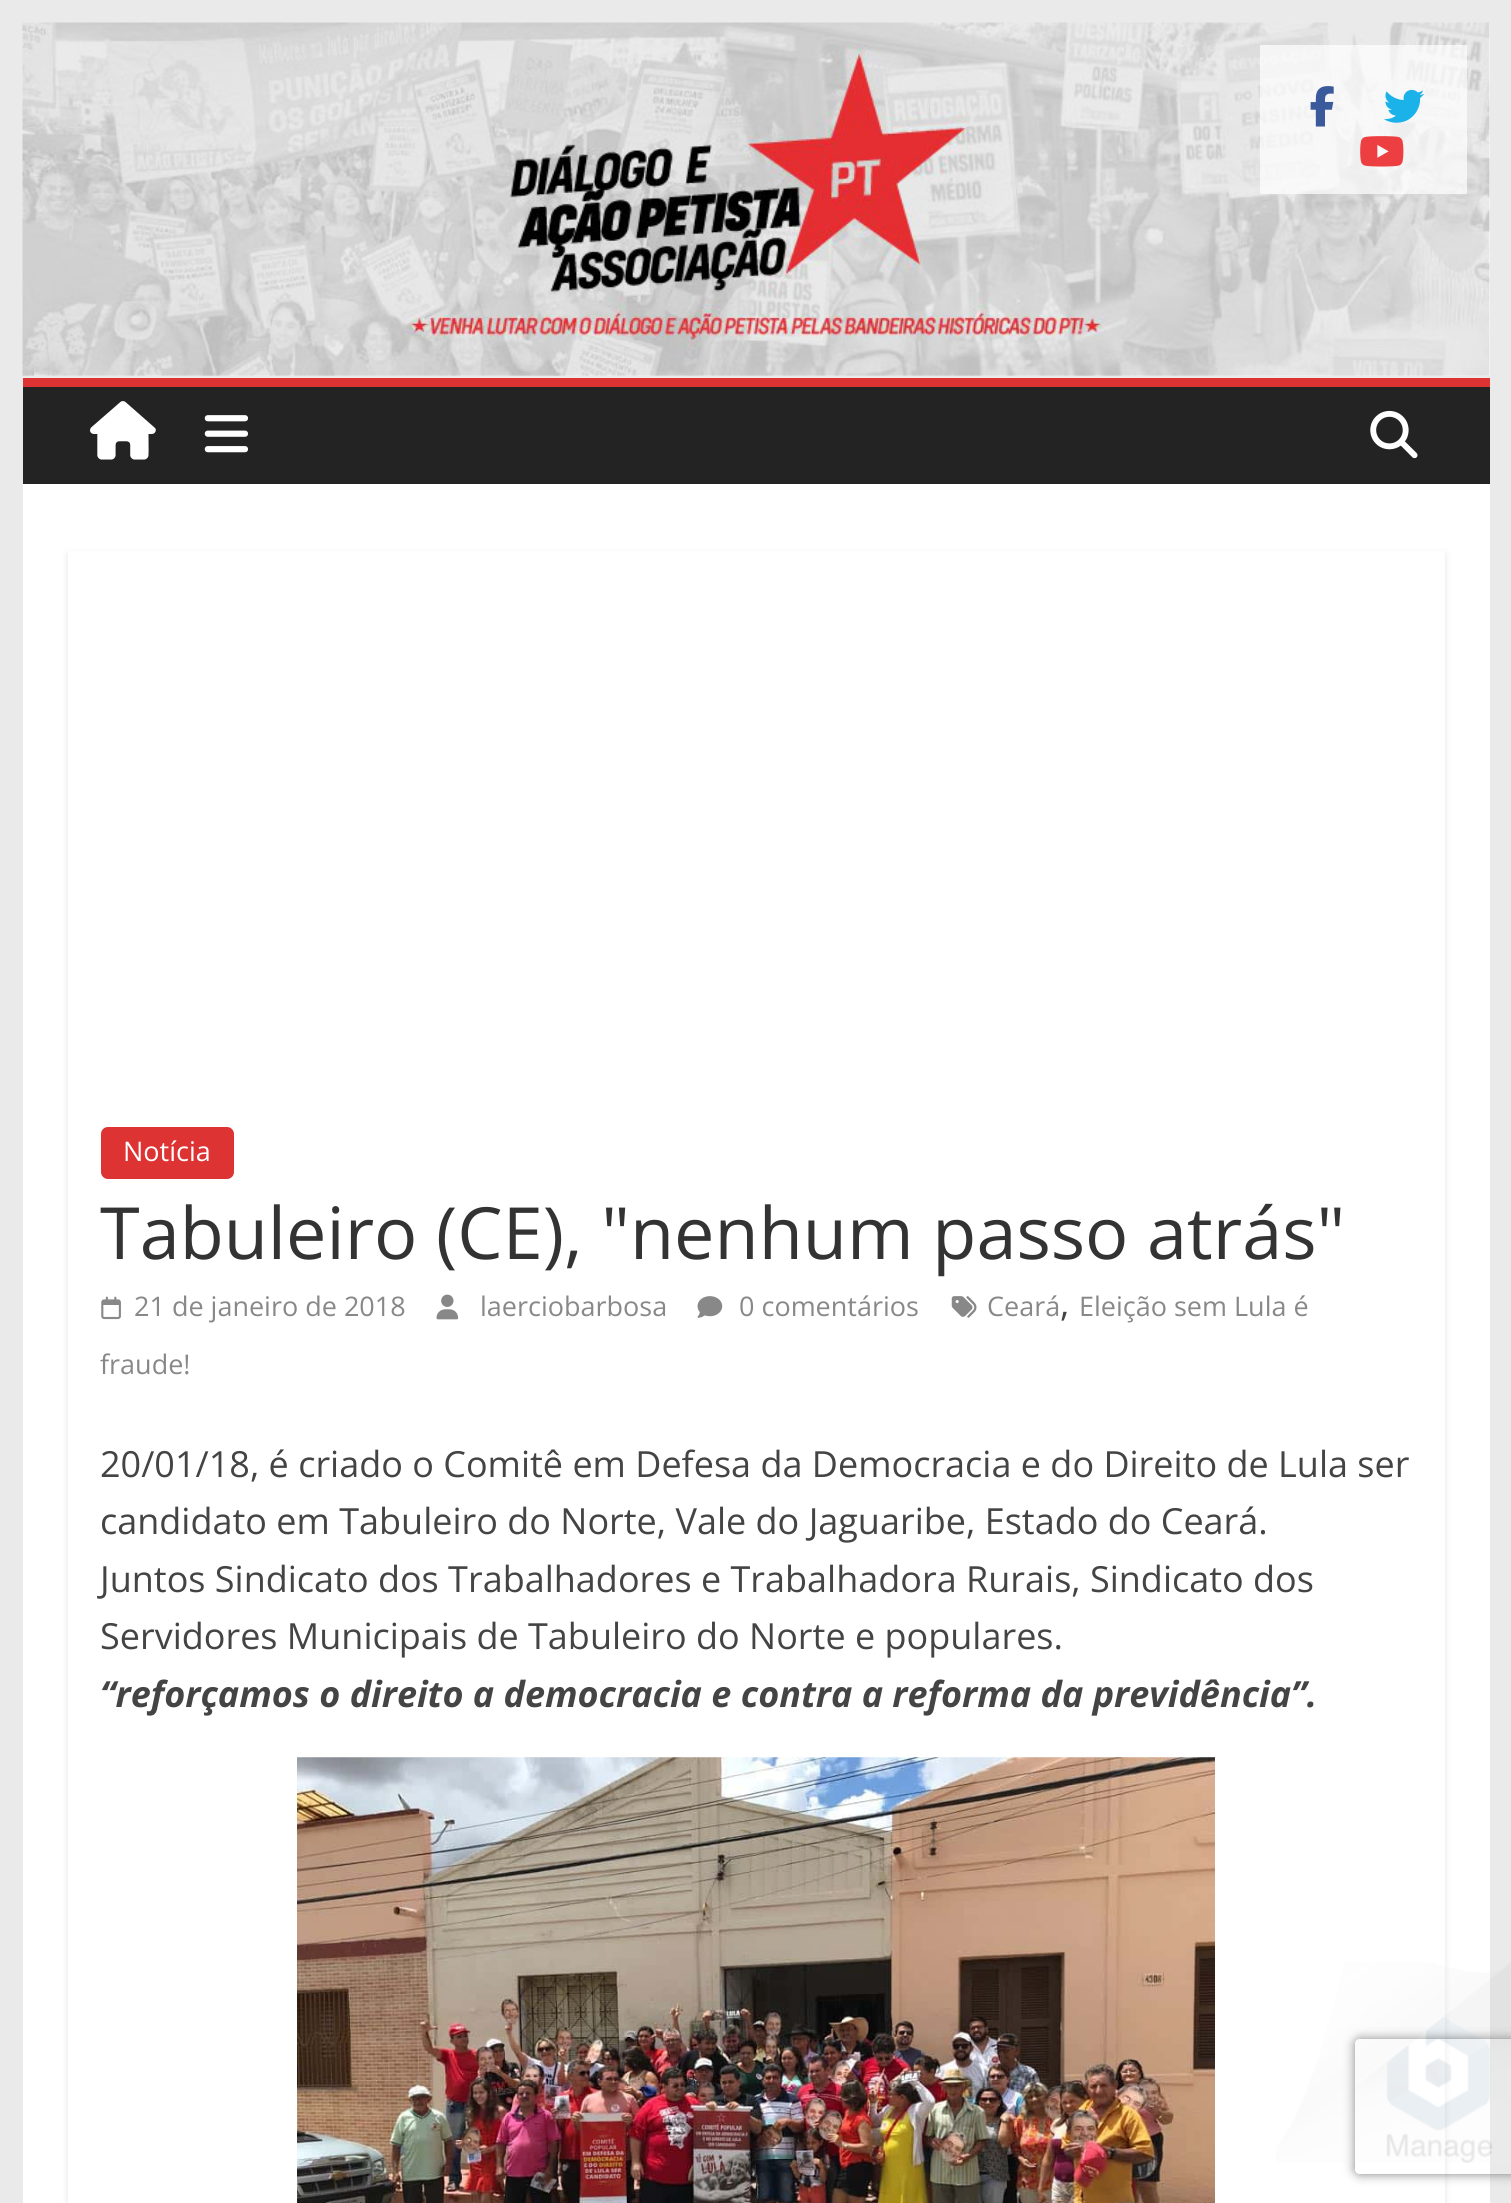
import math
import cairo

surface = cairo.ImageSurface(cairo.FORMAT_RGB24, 1511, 2203)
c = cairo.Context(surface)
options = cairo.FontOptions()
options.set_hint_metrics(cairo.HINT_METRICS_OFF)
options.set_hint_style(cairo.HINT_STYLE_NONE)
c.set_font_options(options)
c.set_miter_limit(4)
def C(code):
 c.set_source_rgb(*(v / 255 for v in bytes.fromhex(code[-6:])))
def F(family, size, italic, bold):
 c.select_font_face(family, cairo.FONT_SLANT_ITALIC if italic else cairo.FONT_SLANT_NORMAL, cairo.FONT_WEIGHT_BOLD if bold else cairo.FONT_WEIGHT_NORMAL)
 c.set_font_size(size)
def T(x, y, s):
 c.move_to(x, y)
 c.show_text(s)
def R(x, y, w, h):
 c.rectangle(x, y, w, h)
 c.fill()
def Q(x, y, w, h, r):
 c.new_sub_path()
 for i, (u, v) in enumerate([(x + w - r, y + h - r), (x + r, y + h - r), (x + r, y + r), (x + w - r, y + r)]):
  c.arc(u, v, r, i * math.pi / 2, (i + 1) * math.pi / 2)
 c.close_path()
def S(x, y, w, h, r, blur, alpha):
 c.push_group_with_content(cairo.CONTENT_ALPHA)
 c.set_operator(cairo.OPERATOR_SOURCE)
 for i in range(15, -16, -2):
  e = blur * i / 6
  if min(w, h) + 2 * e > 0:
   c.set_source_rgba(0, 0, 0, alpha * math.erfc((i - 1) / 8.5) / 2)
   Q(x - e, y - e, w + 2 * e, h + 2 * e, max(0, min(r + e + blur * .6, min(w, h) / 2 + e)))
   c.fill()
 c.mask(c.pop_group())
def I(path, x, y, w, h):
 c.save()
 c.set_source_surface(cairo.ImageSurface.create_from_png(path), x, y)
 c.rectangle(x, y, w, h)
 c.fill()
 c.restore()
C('eaeaea')
c.paint()
C('ffffff')
R(23,23,1467,353)
I('1.png',22,22,1468,354)
c.set_source_rgba(1,1,1,0.7)
R(1260,45,207,149)
I('2.png',1310,86,24,41)
I('3.png',1384,89,41,34)
I('4.png',1360,136,44,31)
C('232323')
R(23,387,1467,97)
C('dd3333')
R(23,378,1467,9)
I('5.png',90,401,66,59)
I('6.png',204,415,44,38)
I('7.png',1370,410,48,49)
C('ffffff')
R(23,484,1467,1719)
c.save()
c.set_fill_rule(cairo.FILL_RULE_EVEN_ODD)
c.new_path()
c.move_to(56,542)
c.line_to(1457,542)
c.line_to(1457,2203)
c.line_to(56,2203)
c.close_path()
c.move_to(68,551)
c.line_to(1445,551)
c.line_to(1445,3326)
c.line_to(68,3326)
c.close_path()
c.clip()
C('000000')
S(68,554,1377,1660,0,3.5,.1)
c.restore()
C('dd3333')
Q(101,1127,133,52,7)
c.fill()
F('Open Sans',27,0,0)
C('ffffff')
T(123,1161,'Notícia')
F('Open Sans',72,0,0)
C('333333')
T(100,1259,'Tabuleiro (CE), "nenhum passo atrás"')
I('8.png',951,1296,26,22)
F('Open Sans',27,0,0)
C('888888')
T(987,1316,'Ceará')
F('Open Sans',36,0,0)
C('444444')
T(1060,1316,',')
F('Open Sans',27,0,0)
C('888888')
T(1079,1316,'Eleição sem Lula é')
T(100,1374,'fraude!')
I('9.png',101,1296,20,24)
T(134,1316,'21 de janeiro de 2018')
I('10.png',436,1294,23,26)
T(480,1316,'laerciobarbosa')
I('11.png',697,1296,26,22)
T(739,1316,'0 comentários')
F('Open Sans',36,0,0)
C('444444')
T(100,1477,'20/01/18, é criado o Comitê em Defesa da Democracia e do Direito de Lula ser')
T(100,1534,'candidato em Tabuleiro do Norte, Vale do Jaguaribe, Estado do Ceará.')
T(100,1592,'Juntos Sindicato dos Trabalhadores e Trabalhadora Rurais, Sindicato dos')
T(100,1649,'Servidores Municipais de Tabuleiro do Norte e populares.')
F('Open Sans',36,1,1)
T(100,1707,'“reforçamos o direito a democracia e contra a reforma da previdência”.')
I('12.png',297,1757,918,446)
c.save()
c.set_fill_rule(cairo.FILL_RULE_EVEN_ODD)
c.new_path()
c.move_to(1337,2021)
c.line_to(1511,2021)
c.line_to(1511,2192)
c.line_to(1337,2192)
c.close_path()
c.move_to(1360,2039)
c.line_to(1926,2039)
c.curve_to(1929,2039,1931,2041,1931,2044)
c.line_to(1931,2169)
c.curve_to(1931,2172,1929,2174,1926,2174)
c.line_to(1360,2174)
c.curve_to(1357,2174,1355,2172,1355,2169)
c.line_to(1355,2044)
c.curve_to(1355,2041,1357,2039,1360,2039)
c.close_path()
c.clip()
C('808080')
S(1355,2039,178,135,5,5.5,1)
c.restore()
I('13.png',1276,1962,235,201)
surface.write_to_png('o.png')
